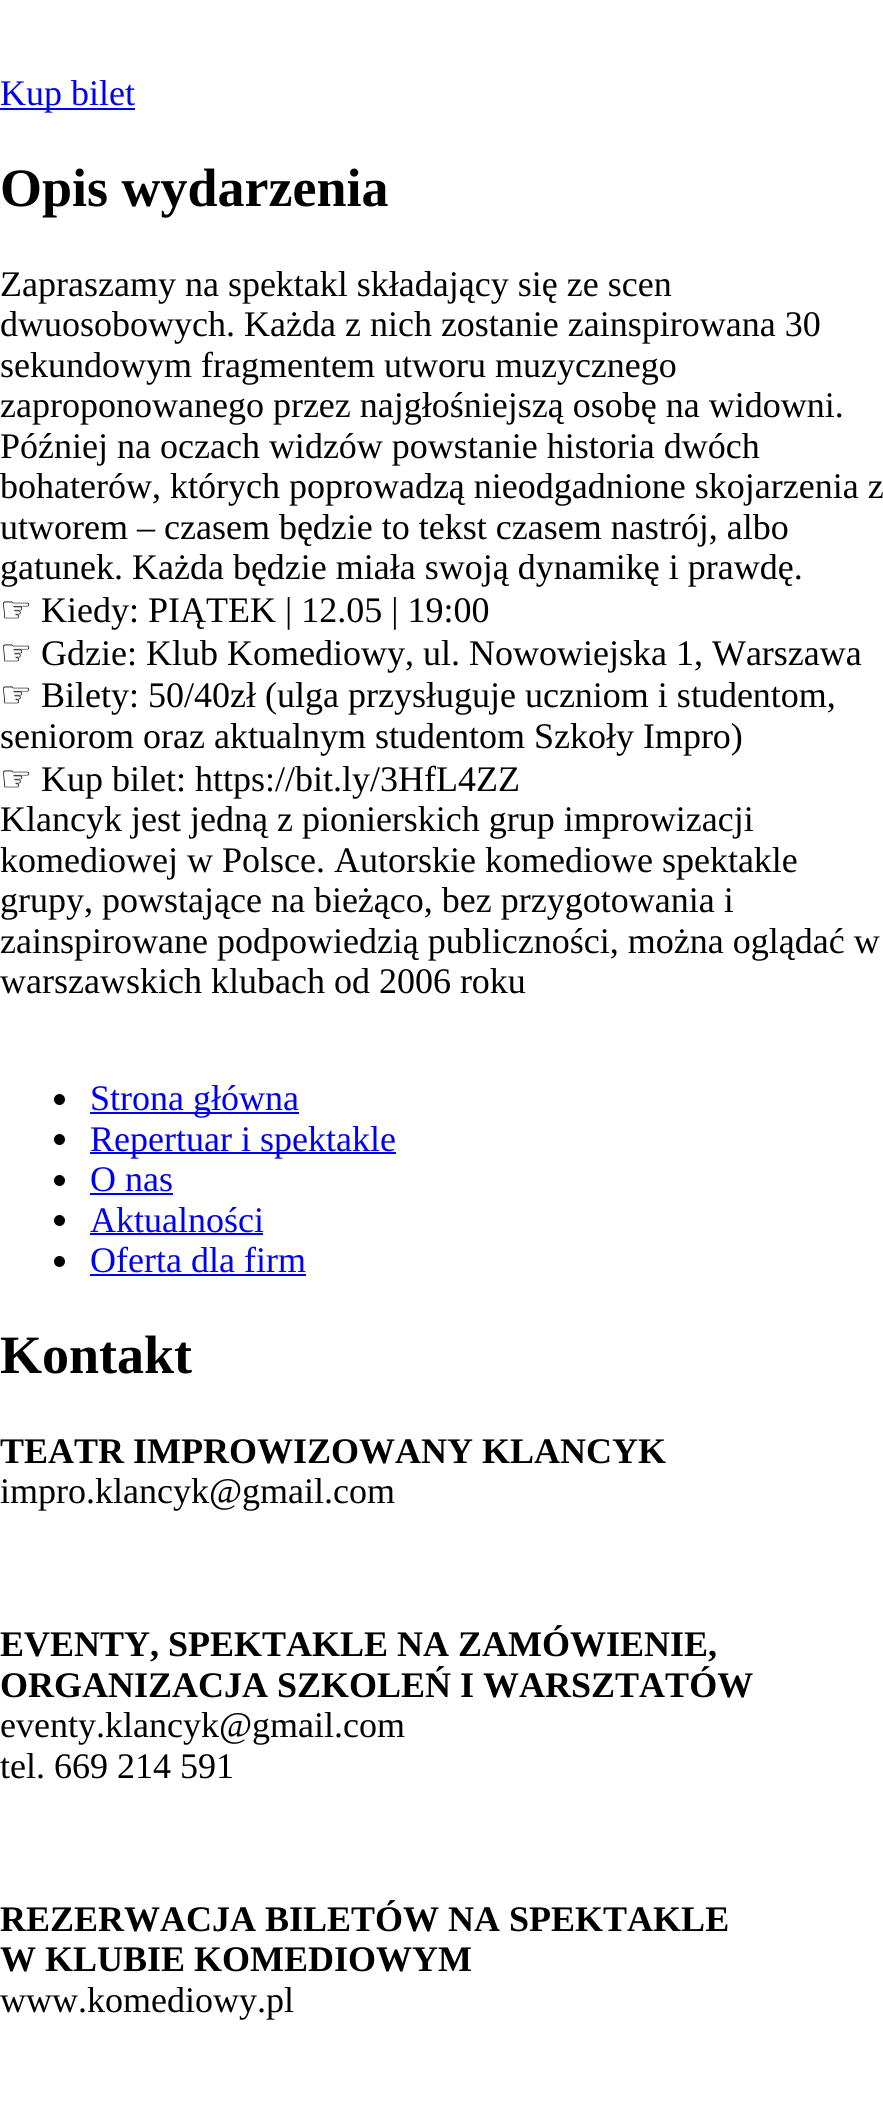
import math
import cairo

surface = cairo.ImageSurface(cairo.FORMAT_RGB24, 883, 2124)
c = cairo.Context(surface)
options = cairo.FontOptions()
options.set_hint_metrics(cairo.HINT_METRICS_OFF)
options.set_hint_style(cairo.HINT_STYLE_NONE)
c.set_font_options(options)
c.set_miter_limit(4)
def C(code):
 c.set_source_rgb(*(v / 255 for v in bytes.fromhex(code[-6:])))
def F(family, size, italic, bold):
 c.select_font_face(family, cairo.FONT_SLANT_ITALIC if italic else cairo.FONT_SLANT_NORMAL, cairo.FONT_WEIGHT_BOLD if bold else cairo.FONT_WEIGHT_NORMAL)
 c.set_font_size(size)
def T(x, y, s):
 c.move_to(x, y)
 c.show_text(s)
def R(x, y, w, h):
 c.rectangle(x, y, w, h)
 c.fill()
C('ffffff')
c.paint()
C('0000ee')
R(0,108,135,2)
F('Liberation Serif',36,0,0)
T(0,105,'Kup bilet')
F('Liberation Serif',54,0,1)
C('000000')
T(0,206,'Opis wydarzenia')
F('Liberation Serif',36,0,0)
T(0,296,'Zapraszamy na spektakl składający się ze scen')
T(0,336,'dwuosobowych. Każda z nich zostanie zainspirowana 30')
T(0,377,'sekundowym fragmentem utworu muzycznego')
T(0,417,'zaproponowanego przez najgłośniejszą osobę na widowni.')
T(0,458,'Później na oczach widzów powstanie historia dwóch')
T(0,498,'bohaterów, których poprowadzą nieodgadnione skojarzenia z')
T(0,539,'utworem – czasem będzie to tekst czasem nastrój, albo')
T(0,579,'gatunek. Każda będzie miała swoją dynamikę i prawdę.')
F('DejaVu Sans',36,0,0)
T(0,622,'☞')
F('Liberation Serif',36,0,0)
T(41,622,'Kiedy: PIĄTEK | 12.05 | 19:00')
F('DejaVu Sans',36,0,0)
T(0,665,'☞')
F('Liberation Serif',36,0,0)
T(41,665,'Gdzie: Klub Komediowy, ul. Nowowiejska 1, Warszawa')
F('DejaVu Sans',36,0,0)
T(0,707,'☞')
F('Liberation Serif',36,0,0)
T(41,707,'Bilety: 50/40zł (ulga przysługuje uczniom i studentom,')
T(0,748,'seniorom oraz aktualnym studentom Szkoły Impro)')
F('DejaVu Sans',36,0,0)
T(0,791,'☞')
F('Liberation Serif',36,0,0)
T(41,791,'Kup bilet: https://bit.ly/3HfL4ZZ')
T(0,831,'Klancyk jest jedną z pionierskich grup improwizacji')
T(0,872,'komediowej w Polsce. Autorskie komediowe spektakle')
T(0,912,'grupy, powstające na bieżąco, bez przygotowania i')
T(0,953,'zainspirowane podpowiedzią publiczności, można oglądać w')
T(0,993,'warszawskich klubach od 2006 roku')
c.new_path()
c.arc(59.5,1099.5,5.5,0,2 * math.pi)
c.fill()
C('0000ee')
R(90,1112,209,2)
T(90,1110,'Strona główna')
C('000000')
c.new_path()
c.arc(59.5,1139.5,5.5,0,2 * math.pi)
c.fill()
C('0000ee')
R(90,1152,306,2)
T(90,1151,'Repertuar i spektakle')
C('000000')
c.new_path()
c.arc(59.5,1180.5,5.5,0,2 * math.pi)
c.fill()
C('0000ee')
T(90,1191,'O nas')
R(90,1193,83,2)
C('000000')
c.new_path()
c.arc(59.5,1220.5,5.5,0,2 * math.pi)
c.fill()
C('0000ee')
T(90,1232,'Aktualności')
R(90,1233,173,2)
C('000000')
c.new_path()
c.arc(59.5,1261.5,5.5,0,2 * math.pi)
c.fill()
C('0000ee')
T(90,1272,'Oferta dla firm')
R(90,1274,216,2)
F('Liberation Serif',54,0,1)
C('000000')
T(0,1373,'Kontakt')
F('Liberation Serif',36,0,1)
T(0,1463,'TEATR IMPROWIZOWANY KLANCYK')
F('Liberation Serif',36,0,0)
T(0,1503,'impro.klancyk@gmail.com')
F('Liberation Serif',36,0,1)
T(0,1656,'EVENTY, SPEKTAKLE NA ZAMÓWIENIE,')
T(0,1697,'ORGANIZACJA SZKOLEŃ I WARSZTATÓW')
F('Liberation Serif',36,0,0)
T(0,1737,'eventy.klancyk@gmail.com')
T(0,1778,'tel. 669 214 591')
F('Liberation Serif',36,0,1)
T(0,1931,'REZERWACJA BILETÓW NA SPEKTAKLE')
T(0,1971,'W KLUBIE KOMEDIOWYM')
F('Liberation Serif',36,0,0)
T(0,2012,'www.komediowy.pl')
surface.write_to_png('o.png')
